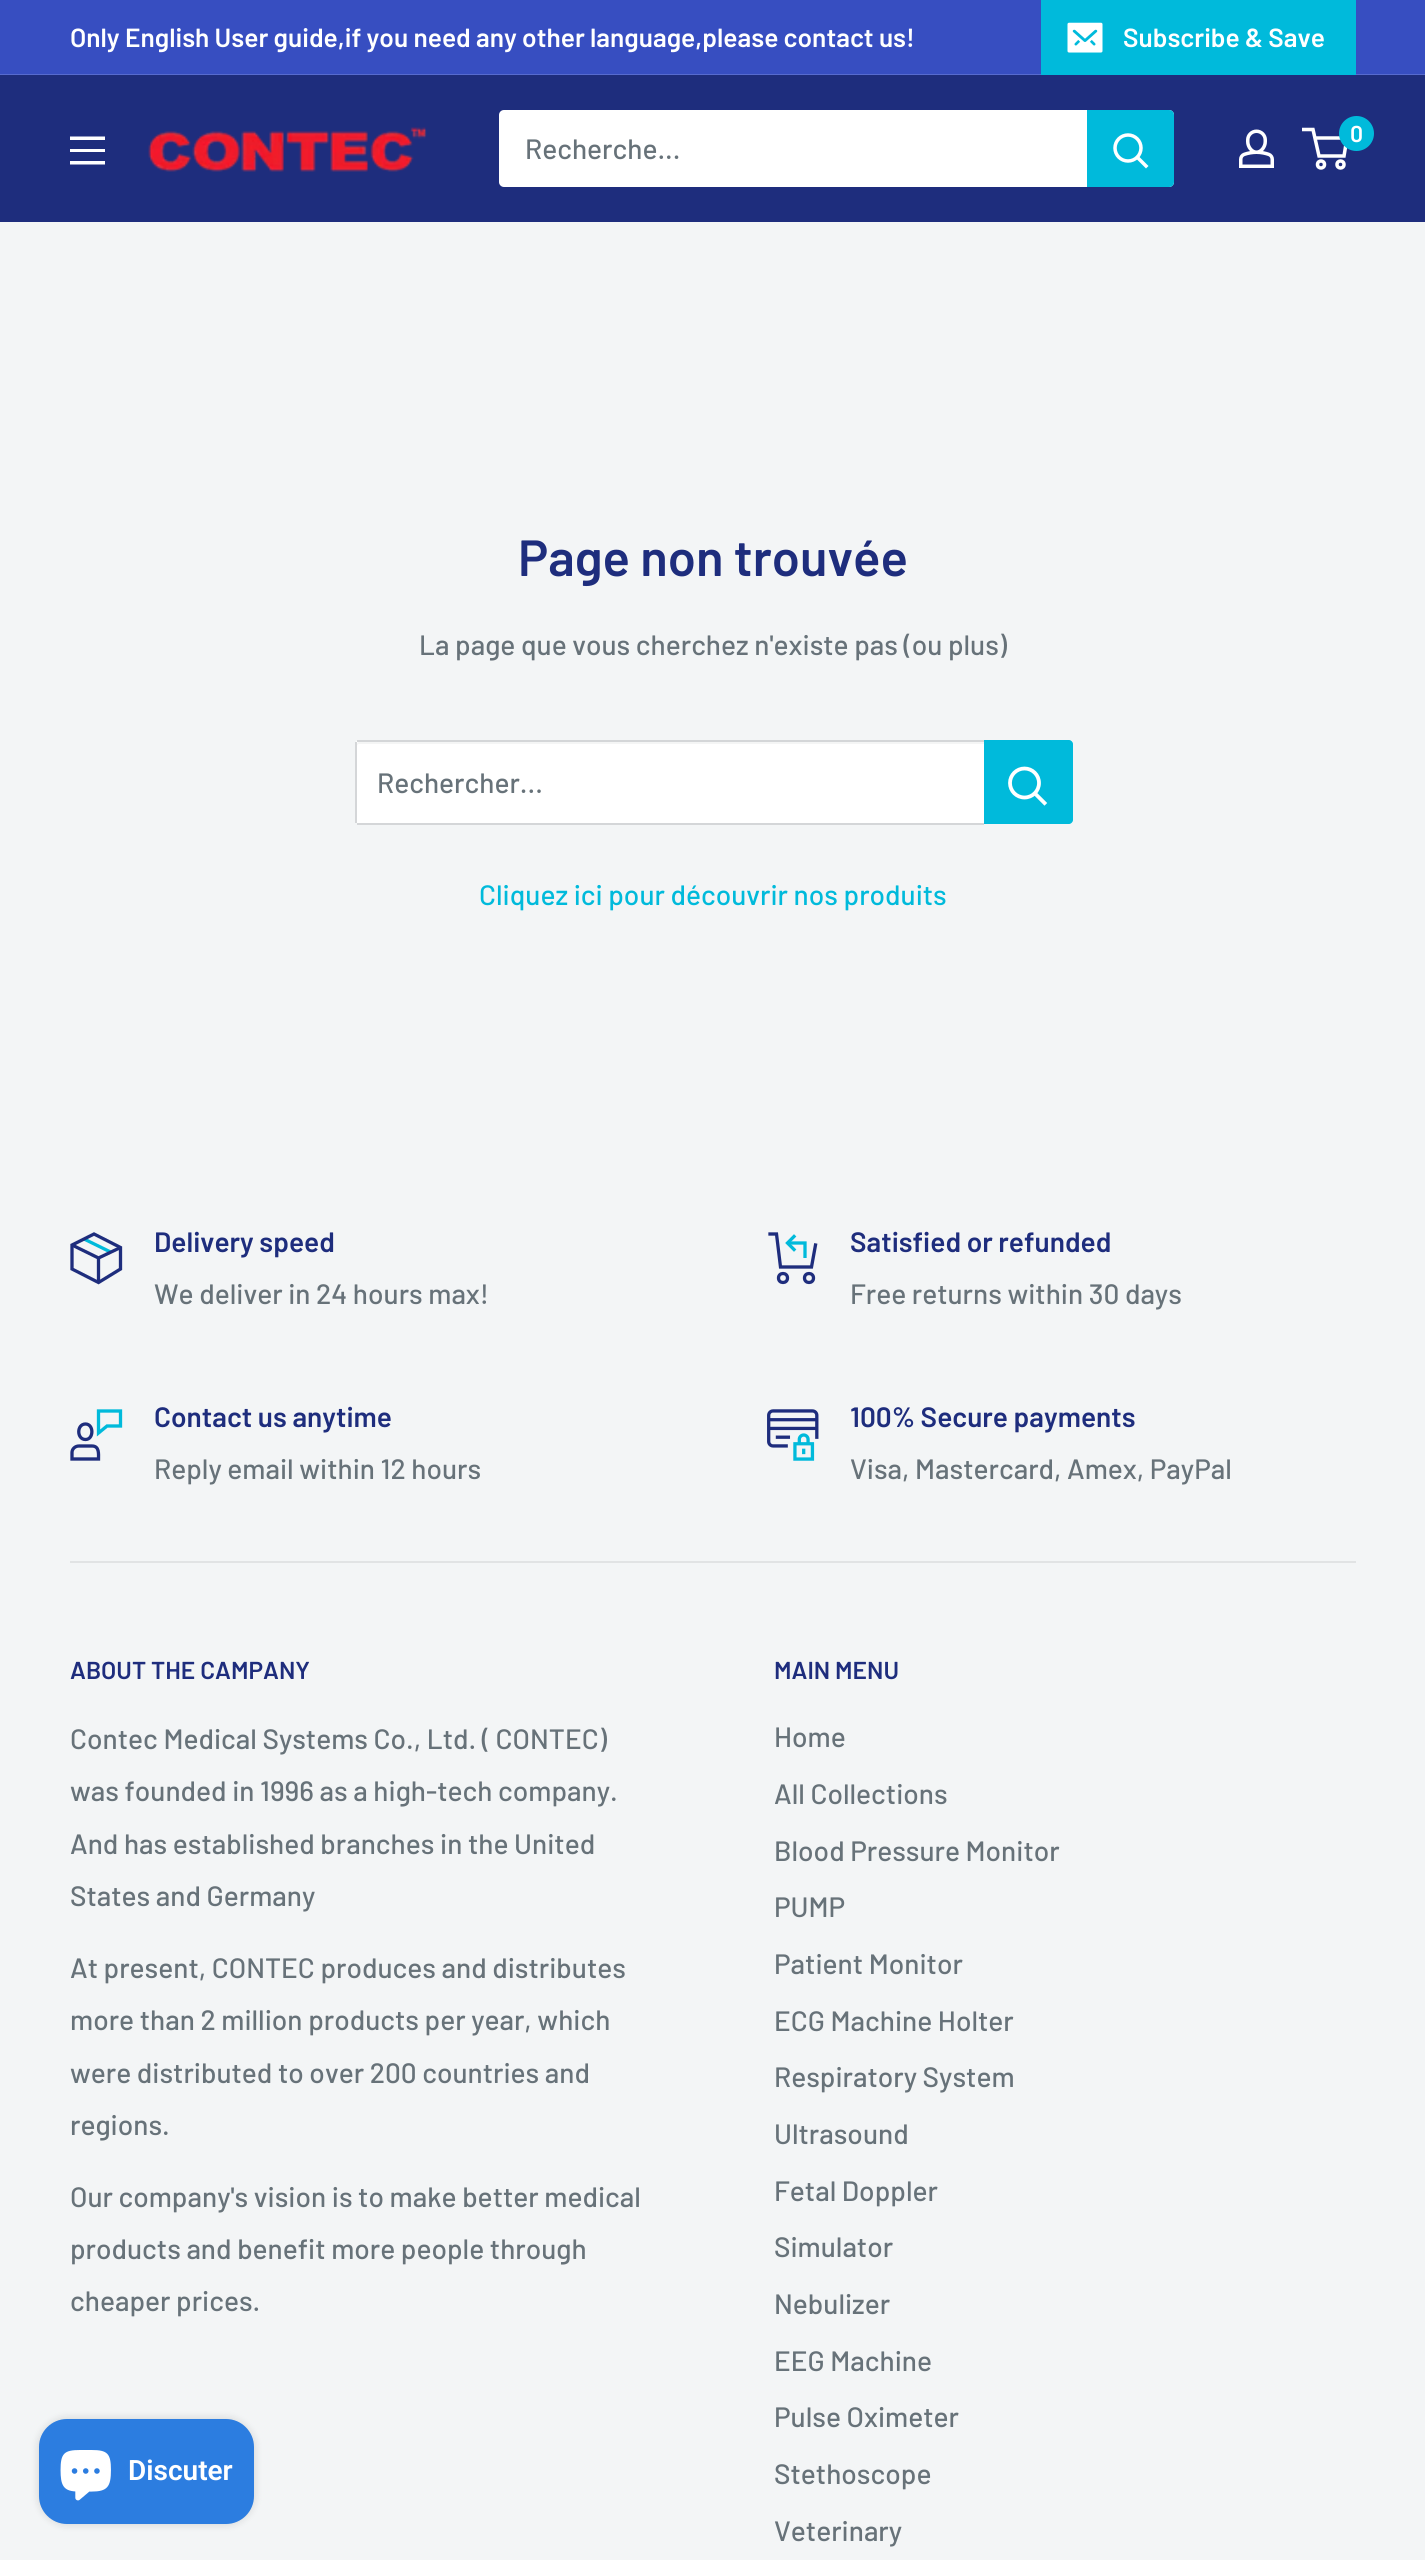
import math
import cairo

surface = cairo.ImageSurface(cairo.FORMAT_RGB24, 1425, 2560)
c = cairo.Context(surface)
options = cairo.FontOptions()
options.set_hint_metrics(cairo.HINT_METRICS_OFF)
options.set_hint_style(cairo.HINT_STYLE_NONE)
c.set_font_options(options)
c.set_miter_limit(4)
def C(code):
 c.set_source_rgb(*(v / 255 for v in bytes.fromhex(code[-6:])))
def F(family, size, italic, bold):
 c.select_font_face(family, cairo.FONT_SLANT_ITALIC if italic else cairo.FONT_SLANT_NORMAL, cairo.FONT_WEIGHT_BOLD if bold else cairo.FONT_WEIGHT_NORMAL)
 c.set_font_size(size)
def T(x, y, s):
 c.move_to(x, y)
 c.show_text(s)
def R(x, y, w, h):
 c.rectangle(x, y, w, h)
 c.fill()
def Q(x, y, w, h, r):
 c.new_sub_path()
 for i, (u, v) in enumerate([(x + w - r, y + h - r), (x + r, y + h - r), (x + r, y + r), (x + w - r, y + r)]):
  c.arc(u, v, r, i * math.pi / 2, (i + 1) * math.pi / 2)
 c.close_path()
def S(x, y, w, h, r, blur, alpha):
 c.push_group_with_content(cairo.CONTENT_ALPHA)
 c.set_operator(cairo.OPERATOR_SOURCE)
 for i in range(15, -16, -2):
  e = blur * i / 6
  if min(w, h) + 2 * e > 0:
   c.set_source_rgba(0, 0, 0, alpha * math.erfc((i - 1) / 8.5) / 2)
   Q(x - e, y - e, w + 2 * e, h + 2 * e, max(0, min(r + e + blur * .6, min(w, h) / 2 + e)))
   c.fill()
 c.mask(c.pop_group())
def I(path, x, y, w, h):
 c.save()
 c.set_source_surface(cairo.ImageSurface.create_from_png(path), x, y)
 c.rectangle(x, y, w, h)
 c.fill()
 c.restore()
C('f3f5f6')
c.paint()
C('374ec1')
R(0,0,1425,74)
C('576bcf')
R(0,74,1425,1)
F('Barlow SemiBold',26.25,0,0)
C('ffffff')
T(70,47,'Only English User guide,if you need any other language,please contact us!')
C('00badb')
c.new_path()
c.move_to(1041,2)
c.line_to(1041,75)
c.line_to(1356,75)
c.line_to(1356,74)
c.line_to(1041,74)
c.close_path()
c.fill()
R(1041,0,315,74)
I('1.png',1067,22,36,31)
C('ffffff')
T(1123,47,'Subscribe & Save')
C('1e2d7d')
R(0,75,1425,147)
C('ffffff')
c.set_fill_rule(cairo.FILL_RULE_EVEN_ODD)
c.new_path()
c.move_to(70,161)
c.line_to(105,161)
c.line_to(105,164.5)
c.line_to(70,164.5)
c.close_path()
c.move_to(70,136.5)
c.line_to(105,136.5)
c.line_to(105,140)
c.line_to(70,140)
c.close_path()
c.move_to(70,149)
c.line_to(105,149)
c.line_to(105,152)
c.line_to(70,152)
c.close_path()
c.fill()
I('2.png',148,127,279,45)
Q(499,110,675,77,5)
c.fill()
F('Barlow Medium',28,0,0)
C('677279')
T(525,159,'Recherche...')
C('00badb')
c.new_path()
c.move_to(1087,110)
c.line_to(1169,110)
c.curve_to(1172,110,1174,112,1174,115)
c.line_to(1174,182)
c.curve_to(1174,185,1172,187,1169,187)
c.line_to(1087,187)
c.close_path()
c.fill()
c.new_path()
c.move_to(1146,166)
c.line_to(1137.5,157.5)
C('ffffff')
c.set_line_width(3.5)
c.set_line_cap(cairo.LINE_CAP_SQUARE)
c.stroke()
c.arc(1128,148,13,0,2 * math.pi)
c.set_line_cap(cairo.LINE_CAP_BUTT)
c.stroke()
I('3.png',1239,129,35,39)
c.arc(1321,164.5,3.5,0,2 * math.pi)
c.stroke()
c.arc(1340.5,164.5,3.5,0,2 * math.pi)
c.stroke()
c.new_path()
c.move_to(1315,138)
c.line_to(1347,138)
c.line_to(1344,156)
c.line_to(1319,156)
c.line_to(1313,129.5)
c.line_to(1302,129.5)
c.stroke()
C('00badb')
c.arc(1356.5,133.5,17.5,0,2 * math.pi)
c.fill()
F('Barlow SemiBold',23,0,0)
C('ffffff')
T(1350,142,'0')
F('Barlow SemiBold',50.75,0,0)
C('1e2d7d')
T(518,576,'Page non trouvée')
F('Barlow Medium',28,0,0)
C('677279')
T(419,655,'La page que vous cherchez n\'existe pas (ou plus)')
C('ffffff')
c.new_path()
c.move_to(359,740)
c.line_to(984,740)
c.line_to(984,824)
c.line_to(359,824)
c.curve_to(357,824,355,822,355,820)
c.line_to(355,744)
c.curve_to(355,742,357,740,359,740)
c.close_path()
c.fill()
C('f4f5f5')
c.set_fill_rule(cairo.FILL_RULE_WINDING)
c.new_path()
c.move_to(359,744)
c.line_to(984,744)
c.line_to(984,742)
c.line_to(359,742)
c.curve_to(357,742,357,744,357,746)
c.curve_to(357,745,358,744,359,744)
c.close_path()
c.fill()
C('d4d6d8')
R(357,740,627,2)
R(357,823,627,2)
R(355,742,2,81)
C('677279')
T(377,793,'Rechercher...')
C('00badb')
c.new_path()
c.move_to(984,740)
c.line_to(1069,740)
c.curve_to(1071,740,1073,742,1073,744)
c.line_to(1073,820)
c.curve_to(1073,822,1071,824,1069,824)
c.line_to(984,824)
c.close_path()
c.fill()
c.new_path()
c.move_to(1044.5,803)
c.line_to(1035,793.5)
C('ffffff')
c.set_line_width(3.8)
c.set_line_cap(cairo.LINE_CAP_SQUARE)
c.stroke()
c.arc(1024.5,783,14.5,0,2 * math.pi)
c.set_line_cap(cairo.LINE_CAP_BUTT)
c.stroke()
C('00badb')
T(479,905,'Cliquez ici pour découvrir nos produits')
c.new_path()
c.move_to(84,1239)
c.line_to(110.5,1252)
c.set_line_width(3.3)
c.stroke()
c.new_path()
c.move_to(120.5,1247.5)
c.line_to(98.5,1258)
c.line_to(72,1245)
c.move_to(98.5,1258)
c.line_to(98.5,1282.5)
C('1e2d7d')
c.stroke()
c.new_path()
c.move_to(120.5,1247.5)
c.line_to(120.5,1269)
c.line_to(98.5,1282.5)
c.line_to(72,1269)
c.line_to(72,1245)
c.line_to(94,1234)
c.close_path()
c.set_line_cap(cairo.LINE_CAP_SQUARE)
c.stroke()
F('Barlow SemiBold',28,0,0)
T(154,1252,'Delivery speed')
F('Barlow Medium',28,0,0)
C('677279')
T(154,1304,'We deliver in 24 hours max!')
c.new_path()
c.move_to(787.5,1243)
c.line_to(805,1243)
c.line_to(805,1258)
C('00badb')
c.set_line_cap(cairo.LINE_CAP_BUTT)
c.stroke()
c.new_path()
c.move_to(794,1249.5)
c.line_to(787.5,1243)
c.line_to(794,1236.5)
c.set_line_cap(cairo.LINE_CAP_SQUARE)
c.stroke()
c.new_path()
c.move_to(815.5,1245)
c.line_to(811.5,1267)
c.line_to(780.5,1267)
c.line_to(776.5,1234)
c.line_to(770,1234)
C('1e2d7d')
c.stroke()
c.arc(783,1278,4.5,0,2 * math.pi)
c.set_line_cap(cairo.LINE_CAP_BUTT)
c.stroke()
c.arc(809,1278,4.5,0,2 * math.pi)
c.stroke()
F('Barlow SemiBold',28,0,0)
T(850,1252,'Satisfied or refunded')
F('Barlow Medium',28,0,0)
C('677279')
T(850,1304,'Free returns within 30 days')
c.new_path()
c.move_to(92,1446)
c.line_to(79,1446)
c.curve_to(75,1446,72,1449,72,1452.5)
c.line_to(72,1459)
c.line_to(98.5,1459)
c.curve_to(98.5,1454,99.5,1446,92,1446)
c.close_path()
c.move_to(85.5,1439.5)
c.curve_to(76.5,1439.5,76.5,1424,85.5,1424)
c.curve_to(94,1424,94,1439.5,85.5,1439.5)
c.close_path()
C('1e2d7d')
c.set_line_cap(cairo.LINE_CAP_SQUARE)
c.stroke()
c.new_path()
c.move_to(98.5,1411)
c.line_to(98.5,1433)
c.line_to(107,1426)
c.line_to(120.5,1426)
c.line_to(120.5,1411)
c.close_path()
C('00badb')
c.stroke()
F('Barlow SemiBold',28,0,0)
C('1e2d7d')
T(154,1427,'Contact us anytime')
F('Barlow Medium',28,0,0)
C('677279')
T(154,1479,'Reply email within 12 hours')
I('4.png',767,1409,52,52)
F('Barlow SemiBold',28,0,0)
C('1e2d7d')
T(850,1427,'100% Secure payments')
F('Barlow Medium',28,0,0)
C('677279')
T(850,1479,'Visa, Mastercard, Amex, PayPal')
C('e1e3e4')
R(70,1561,1286,2)
F('Barlow SemiBold',24.5,0,0)
C('1e2d7d')
T(70,1679,'ABOUT THE CAMPANY')
F('Barlow Medium',28,0,0)
C('677279')
T(70,1749,'Contec Medical Systems Co., Ltd. ( CONTEC)')
T(70,1801,'was founded in 1996 as a high-tech company.')
T(70,1854,'And has established branches in the United')
T(70,1906,'States and Germany')
T(70,1978,'At present, CONTEC produces and distributes')
T(70,2030,'more than 2 million products per year, which')
T(70,2083,'were distributed to over 200 countries and')
T(70,2135,'regions.')
T(70,2207,'Our company\'s vision is to make better medical')
T(70,2259,'products and benefit more people through')
T(70,2311,'cheaper prices.')
F('Barlow SemiBold',24.5,0,0)
C('1e2d7d')
T(774,1679,'MAIN MENU')
F('Barlow Medium',28,0,0)
C('677279')
T(774,1747,'Home')
T(774,1804,'All Collections')
T(774,1861,'Blood Pressure Monitor')
T(774,1917,'PUMP')
T(774,1974,'Patient Monitor')
T(774,2031,'ECG Machine Holter')
T(774,2087,'Respiratory System')
T(774,2144,'Ultrasound')
T(774,2201,'Fetal Doppler')
T(774,2257,'Simulator')
T(774,2314,'Nebulizer')
T(774,2371,'EEG Machine')
T(774,2427,'Pulse Oximeter')
T(774,2484,'Stethoscope')
T(774,2541,'Veterinary')
C('000000')
S(39,2419,215,105,28,4.5,.15)
C('2c7de0')
Q(39,2419,215,105,28)
c.fill()
I('5.png',60,2450,51,51)
F('Roboto SemiBold',28,0,0)
C('ffffff')
T(128,2480,'Discuter')
surface.write_to_png('o.png')
